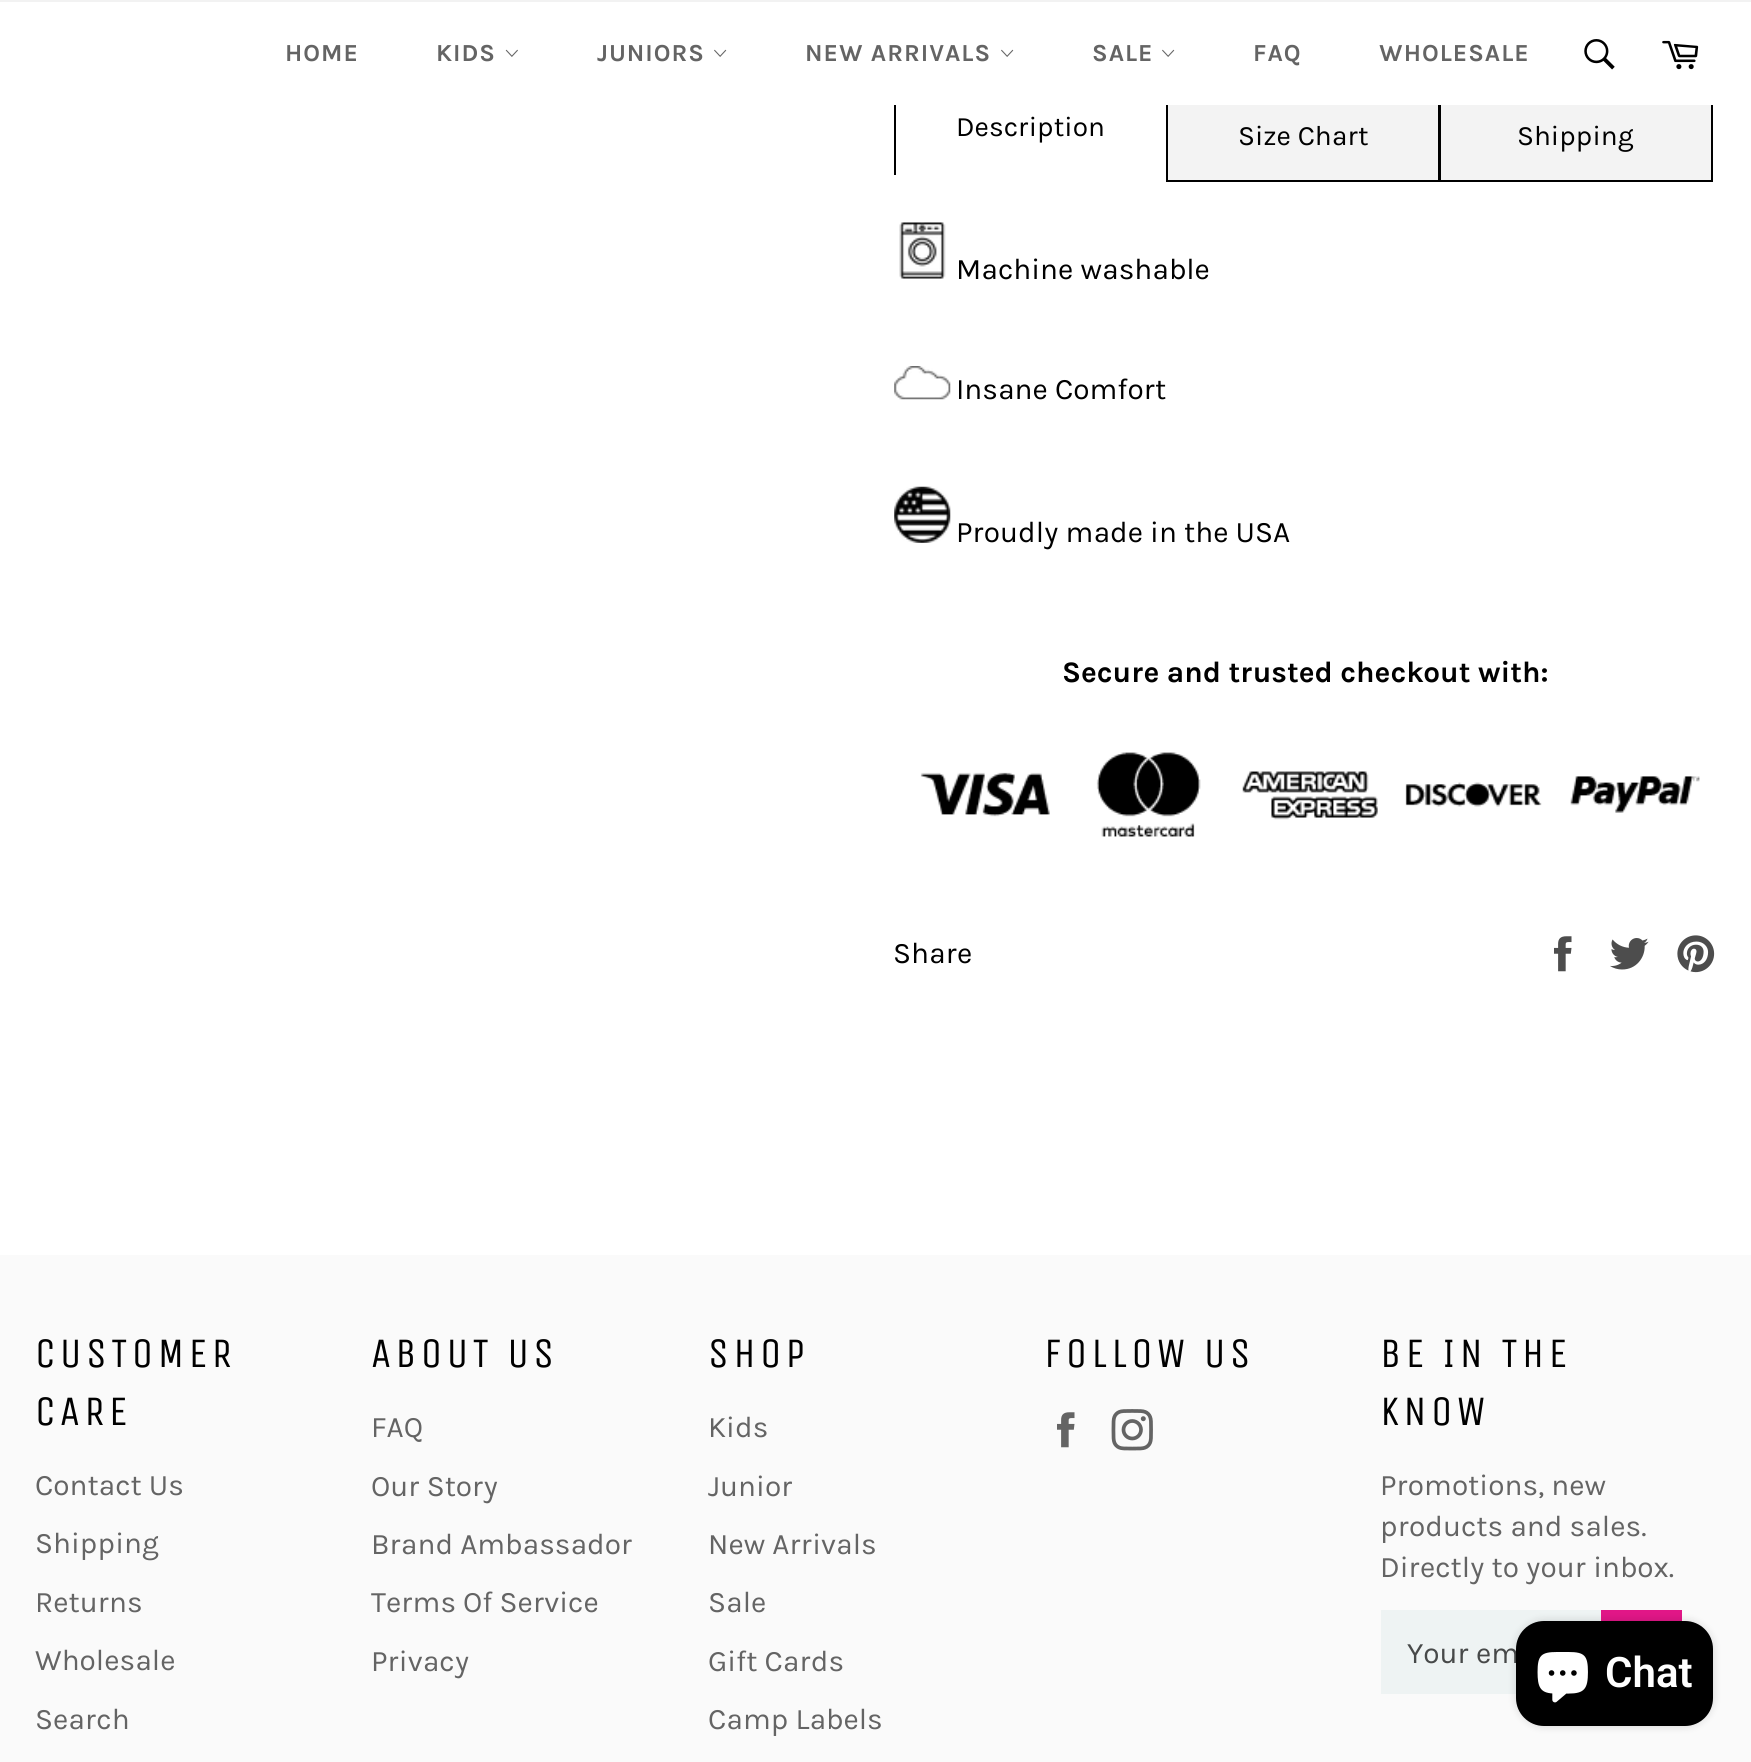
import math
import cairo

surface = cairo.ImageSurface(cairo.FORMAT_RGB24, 1751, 1762)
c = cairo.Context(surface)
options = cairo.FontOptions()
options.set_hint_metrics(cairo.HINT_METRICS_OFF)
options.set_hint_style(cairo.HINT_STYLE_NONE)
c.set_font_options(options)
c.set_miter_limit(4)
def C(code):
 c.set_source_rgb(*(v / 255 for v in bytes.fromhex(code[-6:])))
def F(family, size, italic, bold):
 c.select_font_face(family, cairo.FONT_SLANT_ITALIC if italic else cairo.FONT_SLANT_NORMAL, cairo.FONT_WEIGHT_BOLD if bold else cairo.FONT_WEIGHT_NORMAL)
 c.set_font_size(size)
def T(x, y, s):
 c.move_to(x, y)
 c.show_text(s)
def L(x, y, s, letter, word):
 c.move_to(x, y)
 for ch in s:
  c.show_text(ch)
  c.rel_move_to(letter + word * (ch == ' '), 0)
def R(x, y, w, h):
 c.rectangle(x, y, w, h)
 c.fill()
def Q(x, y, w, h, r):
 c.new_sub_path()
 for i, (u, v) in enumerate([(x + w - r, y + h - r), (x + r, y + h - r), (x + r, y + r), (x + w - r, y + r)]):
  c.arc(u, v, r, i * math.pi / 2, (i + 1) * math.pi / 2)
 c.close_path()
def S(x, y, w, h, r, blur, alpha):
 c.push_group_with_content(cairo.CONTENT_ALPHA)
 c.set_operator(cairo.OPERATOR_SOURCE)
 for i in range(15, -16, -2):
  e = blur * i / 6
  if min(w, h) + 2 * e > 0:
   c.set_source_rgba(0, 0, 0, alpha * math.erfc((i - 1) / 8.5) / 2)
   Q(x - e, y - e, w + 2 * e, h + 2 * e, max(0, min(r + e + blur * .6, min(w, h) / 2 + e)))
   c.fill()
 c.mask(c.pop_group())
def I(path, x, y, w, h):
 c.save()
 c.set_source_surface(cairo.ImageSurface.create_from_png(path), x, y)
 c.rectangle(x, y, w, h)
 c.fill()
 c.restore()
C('ffffff')
c.paint()
C('f3f3f3')
R(1168,105,270,75)
c.rectangle(1167,92,272,89)
C('000000')
c.stroke()
C('f3f3f3')
R(1441,105,270,75)
c.rectangle(1440,92,272,89)
C('000000')
c.stroke()
C('ffffff')
R(1166,91,547,14)
C('f2f2f2')
R(0,0,1751,2)
F('Karla',24.5,0,1)
C('646464')
L(285,61,'HOME',1,0)
L(436,61,'KIDS',1,0)
I('1.png',505,49,13,8)
L(597,61,'JUNIORS',1,0)
I('2.png',714,49,13,8)
L(805,61,'NEW ARRIVALS',1,0)
I('2.png',1001,49,13,8)
L(1092,61,'SALE',1,0)
I('2.png',1162,49,13,8)
L(1253,61,'FAQ',1,0)
L(1379,61,'WHOLESALE',1,0)
I('3.png',1584,39,31,31)
I('4.png',1662,40,37,30)
C('000000')
R(894,105,2,70)
F('Karla',28,0,0)
T(956,136,'Description')
T(1238,145,'Size Chart')
T(1517,145,'Shipping')
I('5.png',899,222,47,57)
F('Karla',29.75,0,0)
T(956,279,'Machine washable')
I('6.png',894,366,57,34)
T(956,399,'Insane Comfort')
I('7.png',894,486,57,57)
T(956,542,'Proudly made in the USA')
F('Karla',29.75,0,1)
T(1062,682,'Secure and trusted checkout with:')
I('8.png',920,752,780,85)
F('Karla',29.75,0,0)
T(893,963,'Share')
I('9.png',1554,936,18,36)
I('10.png',1610,938,39,32)
I('11.png',1677,935,38,38)
C('fafafa')
R(0,1255,1751,507)
F('Unica One',42,0,0)
C('000000')
L(35,1367,'CUSTOMER',4.25,0)
L(35,1425,'CARE',4.25,0)
F('Karla',29.75,0,0)
C('646464')
T(35,1495,'Contact Us')
T(35,1553,'Shipping')
T(35,1612,'Returns')
T(35,1670,'Wholesale')
T(35,1729,'Search')
F('Unica One',42,0,0)
C('000000')
L(371,1367,'ABOUT US',4.25,0)
F('Karla',29.75,0,0)
C('646464')
T(371,1437,'FAQ')
T(371,1496,'Our Story')
T(371,1554,'Brand Ambassador')
T(371,1612,'Terms Of Service')
T(371,1671,'Privacy')
F('Unica One',42,0,0)
C('000000')
L(708,1367,'SHOP',4.25,0)
F('Karla',29.75,0,0)
C('646464')
T(708,1437,'Kids')
T(708,1496,'Junior')
T(708,1554,'New Arrivals')
T(708,1612,'Sale')
T(708,1671,'Gift Cards')
T(708,1729,'Camp Labels')
F('Unica One',42,0,0)
C('000000')
L(1044,1367,'FOLLOW US',4.25,0)
I('12.png',1057,1412,18,36)
I('13.png',1111,1409,42,42)
L(1380,1367,'BE IN THE',4.25,0)
L(1380,1425,'KNOW',4.25,0)
F('Karla',29.75,0,0)
C('646464')
T(1380,1495,'Promotions, new')
T(1380,1536,'products and sales.')
T(1380,1577,'Directly to your inbox.')
C('e11687')
R(1601,1610,81,11)
C('eef3f3')
R(1381,1610,220,84)
C('474949')
T(1407,1663,'Your em')
C('000000')
S(1516,1621,197,105,28,4.5,.15)
C('000000')
Q(1516,1621,197,105,28)
c.fill()
I('14.png',1537,1652,51,51)
F('Roboto SemiBold',42,0,0)
C('ffffff')
T(1605,1687,'Chat')
surface.write_to_png('o.png')
